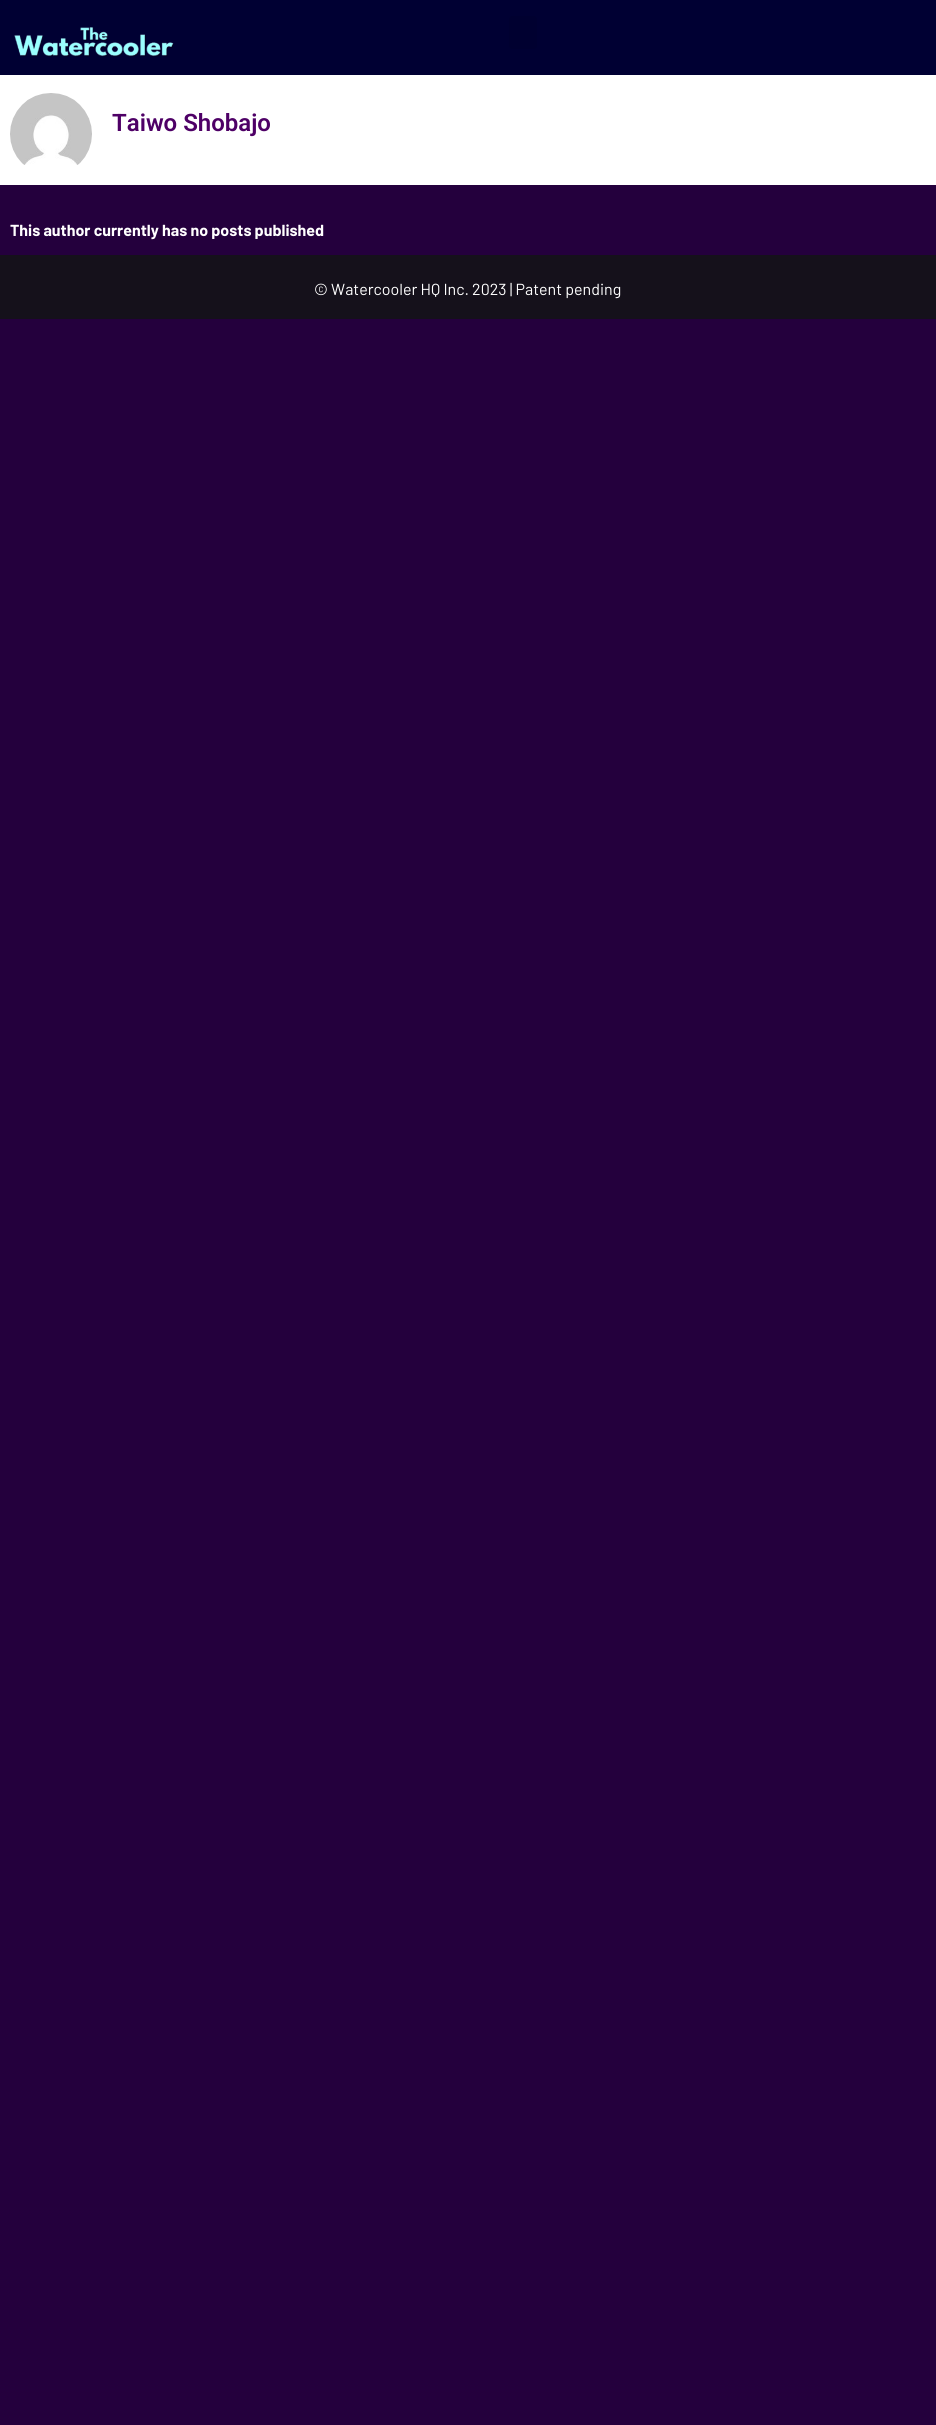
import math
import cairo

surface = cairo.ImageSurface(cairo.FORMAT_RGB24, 936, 2425)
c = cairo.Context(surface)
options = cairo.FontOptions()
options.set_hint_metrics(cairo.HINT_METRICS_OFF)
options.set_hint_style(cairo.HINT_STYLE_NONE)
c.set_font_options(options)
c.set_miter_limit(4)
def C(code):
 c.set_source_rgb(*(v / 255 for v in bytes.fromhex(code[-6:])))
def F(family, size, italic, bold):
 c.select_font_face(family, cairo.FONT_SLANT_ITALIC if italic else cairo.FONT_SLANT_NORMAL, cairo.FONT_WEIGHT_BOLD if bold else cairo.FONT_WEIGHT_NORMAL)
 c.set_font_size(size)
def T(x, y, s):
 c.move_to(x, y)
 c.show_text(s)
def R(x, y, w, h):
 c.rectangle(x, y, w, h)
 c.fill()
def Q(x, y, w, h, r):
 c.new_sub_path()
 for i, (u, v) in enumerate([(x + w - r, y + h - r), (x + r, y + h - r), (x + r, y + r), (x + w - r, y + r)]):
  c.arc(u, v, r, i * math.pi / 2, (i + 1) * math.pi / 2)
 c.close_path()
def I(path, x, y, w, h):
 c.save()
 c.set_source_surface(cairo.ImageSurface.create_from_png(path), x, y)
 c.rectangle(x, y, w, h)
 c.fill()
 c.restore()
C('24003d')
c.paint()
C('000033')
R(0,0,936,75)
I('1.png',14,27,160,30)
C('000030')
Q(509,16,28,33,3)
c.fill()
C('ffffff')
R(0,75,936,110)
I('2.png',10,93,82,72)
F('Roboto SemiBold',24,0,0)
C('4e0066')
T(112,131,'Taiwo Shobajo')
F('Barlow',16,0,1)
C('ffffff')
T(10,236,'This author currently has no posts published')
C('15111b')
R(0,255,936,64)
F('Barlow',16,0,0)
C('ffffff')
T(314,295,'© Watercooler HQ Inc. 2023 | Patent pending')
surface.write_to_png('o.png')
